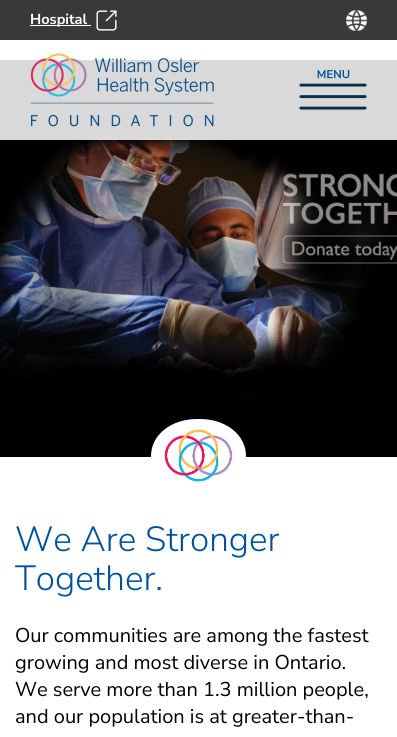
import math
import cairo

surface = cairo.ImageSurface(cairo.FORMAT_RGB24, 397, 737)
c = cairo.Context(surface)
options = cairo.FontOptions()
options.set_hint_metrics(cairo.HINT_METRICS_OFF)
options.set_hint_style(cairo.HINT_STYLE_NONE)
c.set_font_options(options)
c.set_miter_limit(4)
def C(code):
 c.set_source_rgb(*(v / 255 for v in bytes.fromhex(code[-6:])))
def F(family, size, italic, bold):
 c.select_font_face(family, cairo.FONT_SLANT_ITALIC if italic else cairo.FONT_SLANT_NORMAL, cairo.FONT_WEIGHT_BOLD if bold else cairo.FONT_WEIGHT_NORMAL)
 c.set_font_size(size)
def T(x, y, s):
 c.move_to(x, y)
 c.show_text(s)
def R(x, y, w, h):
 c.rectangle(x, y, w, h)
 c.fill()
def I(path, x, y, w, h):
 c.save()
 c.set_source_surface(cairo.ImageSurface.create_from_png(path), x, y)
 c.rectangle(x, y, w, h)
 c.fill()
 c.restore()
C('ffffff')
c.paint()
C('393939')
R(0,0,397,40)
C('ffffff')
R(30,25,61,1)
F('Nunito Sans',14.5,0,1)
T(30,24,'Hospital')
I('1.png',96,10,21,21)
I('2.png',346,10,21,21)
I('5.png',0,60,397,397)
c.set_source_rgba(1,1,1,0.85)
R(0,60,397,80)
I('3.png',30,53,184,74)
I('4.png',299,70,68,40)
C('ffffff')
c.new_path()
c.move_to(197,419)
c.line_to(200,419)
c.curve_to(226,419,246,435,246,456)
c.curve_to(246,476,226,492,200,492)
c.line_to(197,492)
c.curve_to(171,492,151,476,151,456)
c.curve_to(151,435,171,419,197,419)
c.close_path()
c.fill()
I('6.png',164,429,69,53)
F('Nunito Sans Light',35,0,0)
C('00539b')
T(15,551,'We Are Stronger')
T(15,590,'Together.')
F('Nunito Sans',20,0,0)
C('000000')
T(15,642,'Our communities are among the fastest')
T(15,669,'growing and most diverse in Ontario.')
T(15,696,'We serve more than 1.3 million people,')
T(15,723,'and our population is at greater-than-')
surface.write_to_png('o.png')
